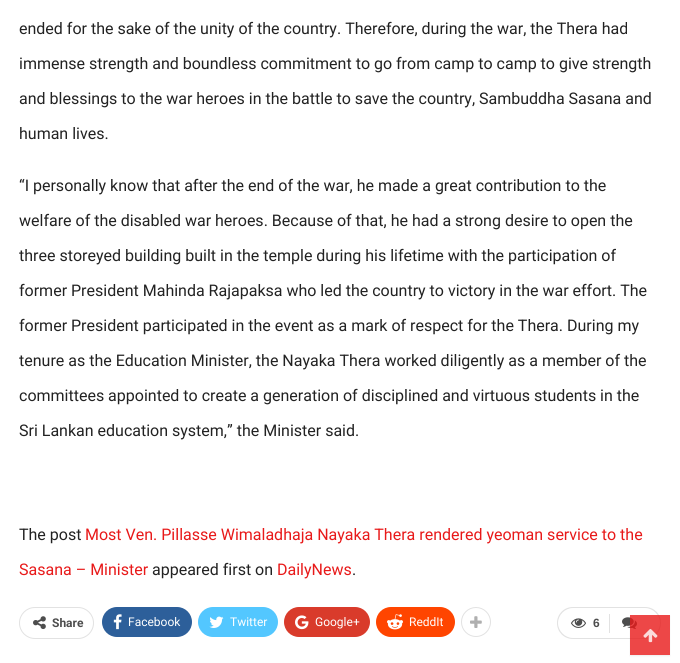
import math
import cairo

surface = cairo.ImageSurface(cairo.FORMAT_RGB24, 680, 663)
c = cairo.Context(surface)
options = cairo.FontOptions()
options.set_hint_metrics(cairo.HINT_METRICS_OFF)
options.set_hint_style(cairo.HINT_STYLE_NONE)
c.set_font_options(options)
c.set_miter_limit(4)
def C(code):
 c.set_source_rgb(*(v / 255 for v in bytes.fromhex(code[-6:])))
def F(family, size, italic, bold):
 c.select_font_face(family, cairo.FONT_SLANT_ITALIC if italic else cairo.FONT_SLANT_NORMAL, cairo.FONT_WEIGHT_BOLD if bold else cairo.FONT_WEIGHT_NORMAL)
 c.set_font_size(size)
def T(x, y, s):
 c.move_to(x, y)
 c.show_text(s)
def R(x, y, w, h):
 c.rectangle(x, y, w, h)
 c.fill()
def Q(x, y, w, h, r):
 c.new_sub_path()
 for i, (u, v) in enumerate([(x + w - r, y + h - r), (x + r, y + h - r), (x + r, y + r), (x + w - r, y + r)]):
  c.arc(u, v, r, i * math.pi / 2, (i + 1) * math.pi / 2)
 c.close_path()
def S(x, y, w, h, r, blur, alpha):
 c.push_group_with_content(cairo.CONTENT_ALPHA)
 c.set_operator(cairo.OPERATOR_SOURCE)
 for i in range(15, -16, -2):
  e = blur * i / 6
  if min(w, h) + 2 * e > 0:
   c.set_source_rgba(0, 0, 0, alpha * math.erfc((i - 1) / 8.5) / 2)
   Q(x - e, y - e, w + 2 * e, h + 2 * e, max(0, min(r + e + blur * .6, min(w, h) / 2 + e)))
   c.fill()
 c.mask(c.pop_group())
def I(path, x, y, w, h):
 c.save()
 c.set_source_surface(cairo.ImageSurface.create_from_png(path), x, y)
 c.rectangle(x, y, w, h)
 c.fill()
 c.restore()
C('ffffff')
c.paint()
F('Roboto',16,0,0)
C('222222')
T(19,34,'ended for the sake of the unity of the country. Therefore, during the war, the Thera had')
T(19,69,'immense strength and boundless commitment to go from camp to camp to give strength')
T(19,104,'and blessings to the war heroes in the battle to save the country, Sambuddha Sasana and')
T(19,139,'human lives.')
T(19,191,'“I personally know that after the end of the war, he made a great contribution to the')
T(19,226,'welfare of the disabled war heroes. Because of that, he had a strong desire to open the')
T(19,261,'three storeyed building built in the temple during his lifetime with the participation of')
T(19,296,'former President Mahinda Rajapaksa who led the country to victory in the war effort. The')
T(19,331,'former President participated in the event as a mark of respect for the Thera. During my')
T(19,366,'tenure as the Education Minister, the Nayaka Thera worked diligently as a member of the')
T(19,401,'committees appointed to create a generation of disciplined and virtuous students in the')
T(19,436,'Sri Lankan education system,” the Minister said.')
T(19,540,'The post')
C('e81919')
T(85,540,'Most Ven. Pillasse Wimaladhaja Nayaka Thera rendered yeoman service to the')
T(19,575,'Sasana – Minister')
C('222222')
T(152,575,'appeared first on')
C('e81919')
T(277,575,'DailyNews')
C('222222')
T(352,575,'.')
Q(19.5,607.5,74,31,15.5)
C('e2e2e2')
c.set_line_width(1)
c.stroke()
I('1.png',33,616,13,14)
F('Roboto',12,0,1)
C('4d4d4d')
T(52,627,'Share')
C('2d5f9a')
Q(102,607,90,30,15)
c.fill()
I('2.png',113,614,9,16)
F('Roboto',12,0,0)
C('ffffff')
T(128,626,'Facebook')
C('53c7ff')
Q(198,607,80,30,15)
c.fill()
I('3.png',209,616,15,12)
C('ffffff')
T(230,626,'Twitter')
C('d93b2b')
Q(284,607,86,30,15)
c.fill()
I('4.png',295,615,14,15)
C('ffffff')
T(315,626,'Google+')
C('ff4500')
Q(376,607,79,30,15)
c.fill()
I('5.png',387,614,16,16)
C('ffffff')
T(409,626,'ReddIt')
c.new_path()
c.arc(476,622,14.5,0,2 * math.pi)
C('e2e2e2')
c.stroke()
I('6.png',470,616,12,12)
c.set_fill_rule(cairo.FILL_RULE_EVEN_ODD)
c.new_path()
c.move_to(573,607)
c.line_to(609,607)
c.line_to(609,639)
c.line_to(573,639)
c.curve_to(564,639,557,632,557,623)
c.curve_to(557,614,564,607,573,607)
c.close_path()
c.move_to(573,608)
c.line_to(609,608)
c.line_to(609,638)
c.line_to(573,638)
c.curve_to(565,638,558,631,558,623)
c.curve_to(558,615,565,608,573,608)
c.close_path()
c.fill()
I('7.png',571,618,15,10)
F('Liberation Sans',12,0,1)
C('4d4d4d')
T(593,627,'6')
C('e2e2e2')
c.new_path()
c.move_to(609,607)
c.line_to(645,607)
c.curve_to(654,607,661,614,661,623)
c.curve_to(661,632,654,639,645,639)
c.line_to(609,639)
c.close_path()
c.move_to(609,608)
c.line_to(645,608)
c.curve_to(653,608,660,615,660,623)
c.curve_to(660,631,653,638,645,638)
c.line_to(609,638)
c.close_path()
c.fill()
R(609,614,1,19)
I('8.png',622,617,15,12)
c.save()
c.new_path()
c.move_to(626,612)
c.line_to(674,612)
c.line_to(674,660)
c.line_to(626,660)
c.close_path()
c.move_to(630,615)
c.line_to(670,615)
c.line_to(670,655)
c.line_to(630,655)
c.close_path()
c.clip()
C('000000')
S(630,616,40,40,0,1,.07)
c.restore()
c.set_source_rgba(0.91,0.098,0.098,0.8)
R(630,615,40,40)
I('9.png',643,629,15,14)
surface.write_to_png('o.png')
